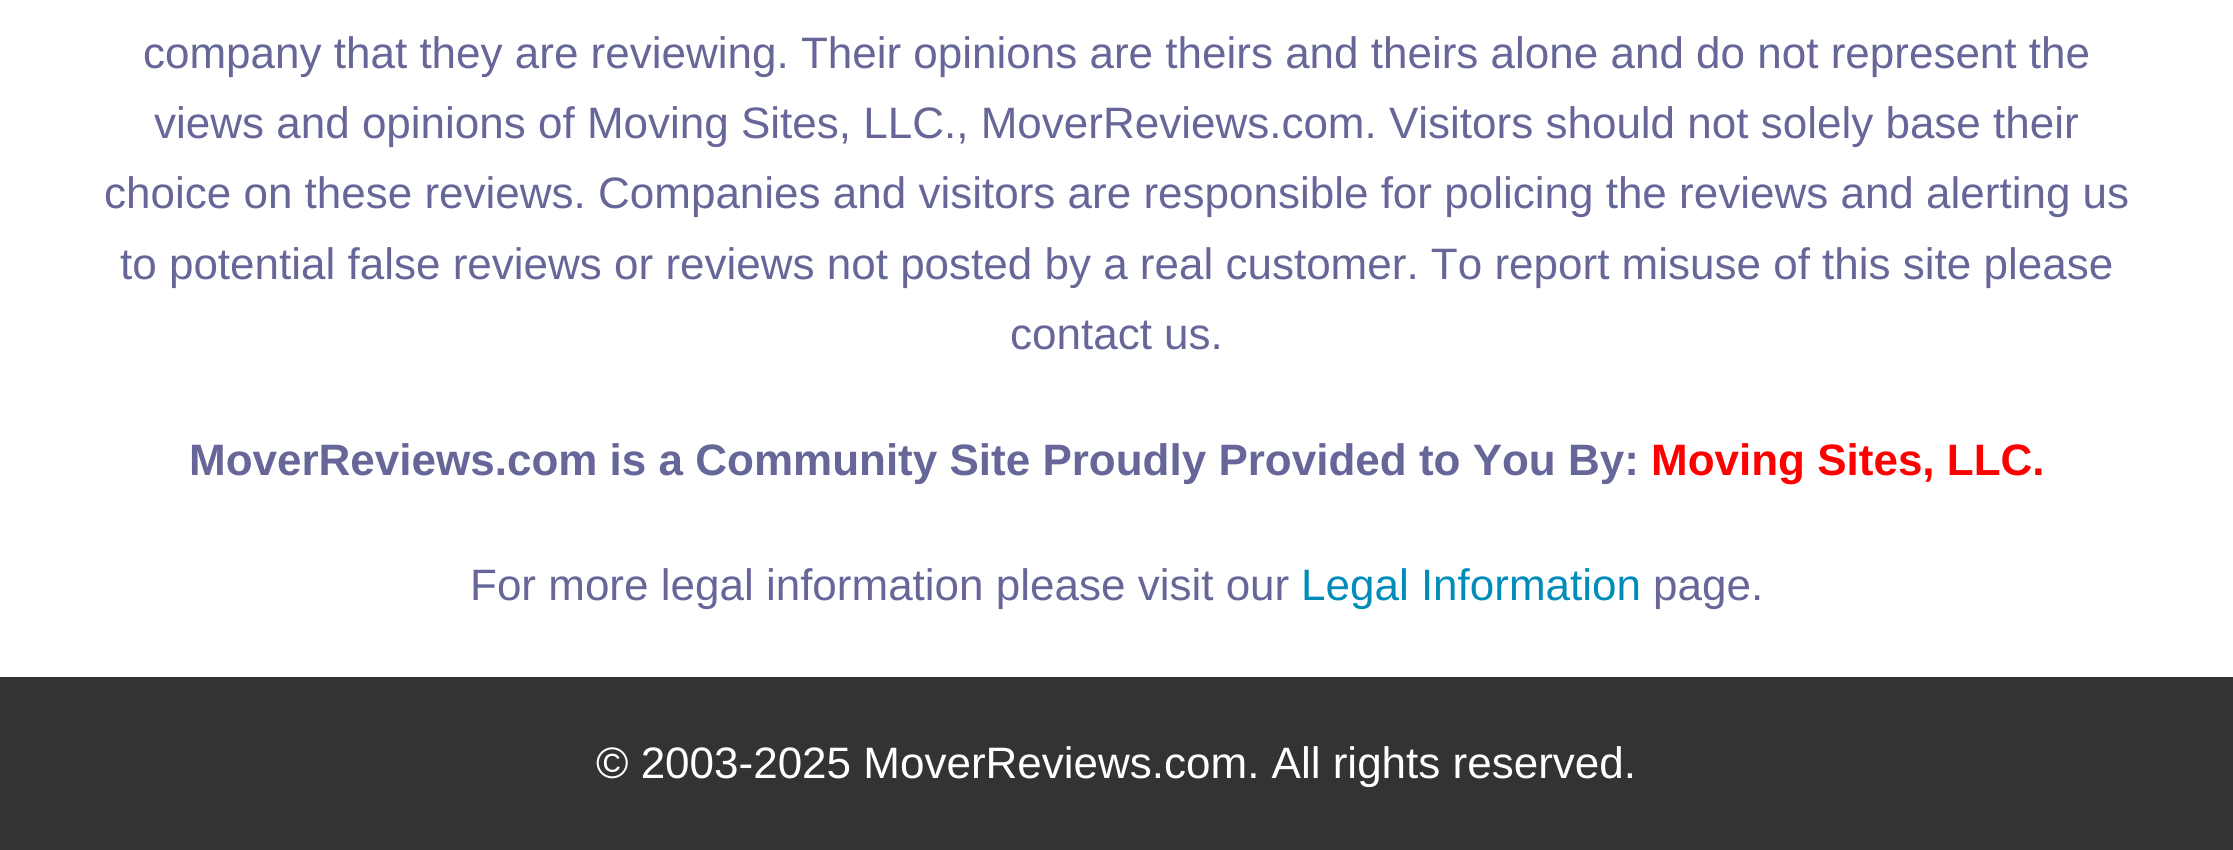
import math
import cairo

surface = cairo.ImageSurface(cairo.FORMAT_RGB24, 2233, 850)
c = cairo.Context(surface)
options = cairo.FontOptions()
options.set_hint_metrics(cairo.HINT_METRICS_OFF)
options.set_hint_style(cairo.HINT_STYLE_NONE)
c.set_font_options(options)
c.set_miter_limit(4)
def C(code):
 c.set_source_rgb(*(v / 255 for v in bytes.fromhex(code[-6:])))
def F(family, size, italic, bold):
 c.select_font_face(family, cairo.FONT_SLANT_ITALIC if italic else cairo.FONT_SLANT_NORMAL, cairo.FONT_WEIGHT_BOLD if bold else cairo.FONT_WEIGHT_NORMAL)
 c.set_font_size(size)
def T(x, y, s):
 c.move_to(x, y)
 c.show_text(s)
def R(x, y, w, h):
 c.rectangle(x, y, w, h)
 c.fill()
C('ffffff')
c.paint()
F('Liberation Sans',44,0,0)
C('666699')
T(143,68,'company that they are reviewing. Their opinions are theirs and theirs alone and do not represent the')
T(154,138,'views and opinions of Moving Sites, LLC., MoverReviews.com. Visitors should not solely base their')
T(104,208,'choice on these reviews. Companies and visitors are responsible for policing the reviews and alerting us')
T(120,279,'to potential false reviews or reviews not posted by a real customer. To report misuse of this site please')
T(1010,349,'contact us.')
F('Liberation Sans',44,0,1)
T(189,475,'MoverReviews.com is a Community Site Proudly Provided to You By:')
C('ff0000')
T(1651,475,'Moving Sites, LLC.')
F('Liberation Sans',44,0,0)
C('666699')
T(470,600,'For more legal information please visit our')
C('008cba')
T(1301,600,'Legal Information')
C('666699')
T(1653,600,'page.')
C('333333')
R(0,677,2233,173)
C('ffffff')
T(596,778,'© 2003-2025 MoverReviews.com. All rights reserved.')
surface.write_to_png('o.png')
